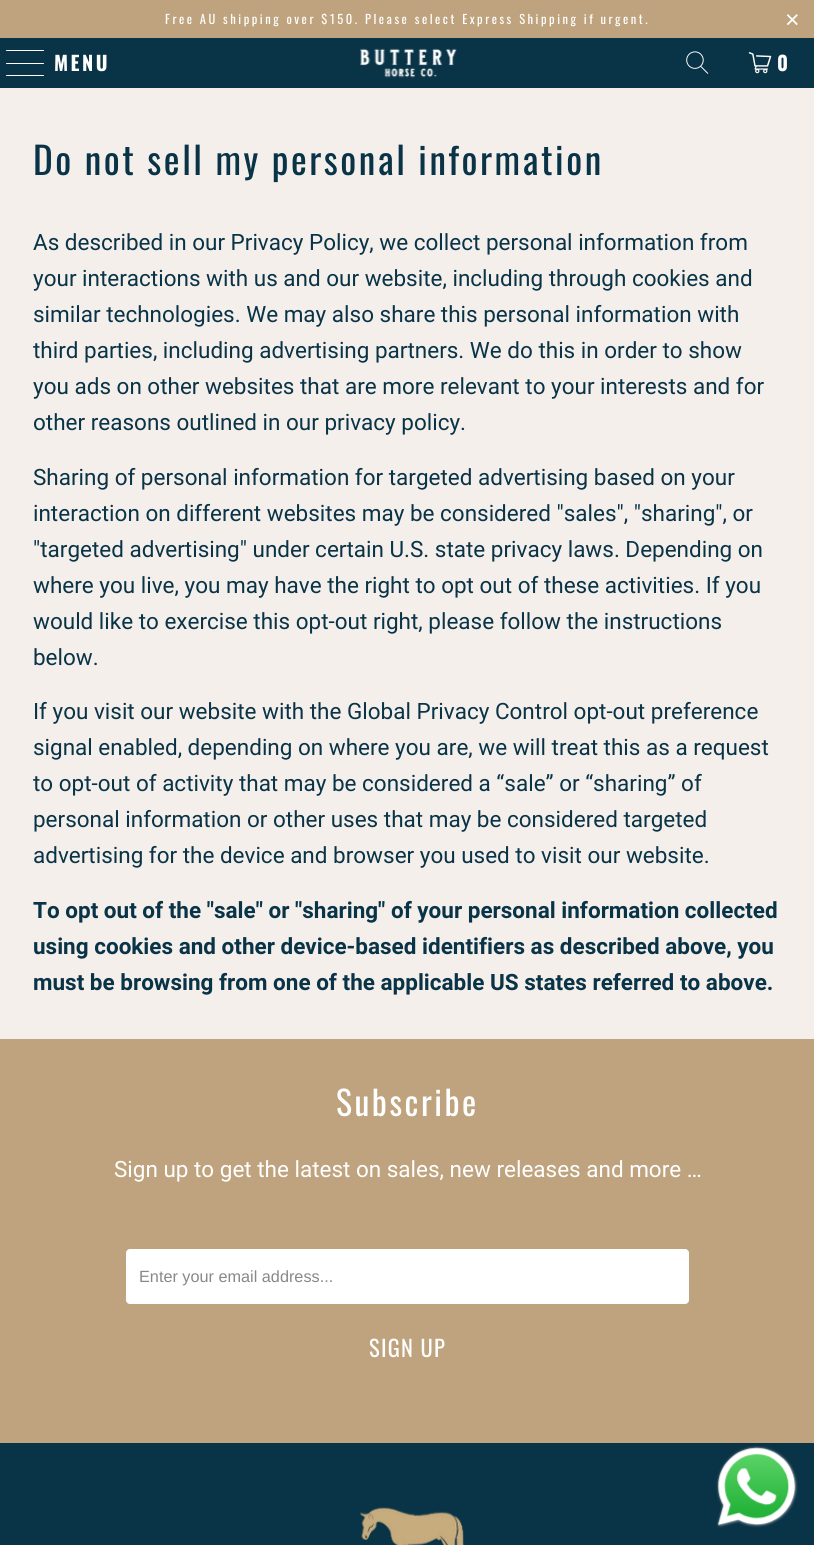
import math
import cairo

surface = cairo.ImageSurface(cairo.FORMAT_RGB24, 814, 1545)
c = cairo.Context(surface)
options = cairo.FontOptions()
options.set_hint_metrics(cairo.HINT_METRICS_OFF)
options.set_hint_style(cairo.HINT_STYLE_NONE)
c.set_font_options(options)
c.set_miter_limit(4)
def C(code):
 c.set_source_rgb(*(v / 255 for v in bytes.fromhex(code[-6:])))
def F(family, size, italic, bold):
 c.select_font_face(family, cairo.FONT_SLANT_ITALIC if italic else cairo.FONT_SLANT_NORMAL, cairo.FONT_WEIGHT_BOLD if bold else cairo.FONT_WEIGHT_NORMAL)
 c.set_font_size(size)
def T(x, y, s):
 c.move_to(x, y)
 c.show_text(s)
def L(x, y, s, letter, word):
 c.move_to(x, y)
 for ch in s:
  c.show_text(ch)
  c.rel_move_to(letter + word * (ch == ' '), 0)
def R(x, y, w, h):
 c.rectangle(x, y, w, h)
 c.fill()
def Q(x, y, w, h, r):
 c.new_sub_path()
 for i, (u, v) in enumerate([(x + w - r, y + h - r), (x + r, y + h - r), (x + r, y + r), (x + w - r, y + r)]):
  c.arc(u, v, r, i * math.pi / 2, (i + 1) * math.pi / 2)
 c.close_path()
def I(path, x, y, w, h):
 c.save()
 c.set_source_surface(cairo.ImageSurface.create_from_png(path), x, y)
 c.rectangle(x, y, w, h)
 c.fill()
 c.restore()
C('f5efeb')
c.paint()
C('bea37e')
R(0,0,814,38)
F('Oswald',12.5,0,0)
C('ffffff')
L(165,24,'Free AU shipping over $150. Please select Express Shipping if urgent.',2.5,0)
F('Liberation Sans',25,0,0)
L(785,28,'×',2.5,0)
C('093346')
R(0,38,814,50)
C('ffffff')
Q(6,50,38,1,.5)
c.fill()
Q(6,63,38,1,.5)
c.fill()
Q(6,75,38,1,.5)
c.fill()
F('Oswald',20,0,1)
L(54,71,'MENU',2.5,0)
I('1.png',360,48,97,30)
I('2.png',686,51,23,23)
I('3.png',748,52,24,22)
L(777,71,'0',2.5,0)
F('Oswald',37.5,0,0)
C('093346')
L(33,175,'Do not sell my personal information',2.5,0)
F('Roboto',22.5,0,0)
T(33,250,'As described in our Privacy Policy, we collect personal information from')
T(33,286,'your interactions with us and our website, including through cookies and')
T(33,322,'similar technologies. We may also share this personal information with')
T(33,358,'third parties, including advertising partners. We do this in order to show')
T(33,394,'you ads on other websites that are more relevant to your interests and for')
T(33,430,'other reasons outlined in our privacy policy.')
T(33,485,'Sharing of personal information for targeted advertising based on your')
T(33,521,'interaction on different websites may be considered "sales", "sharing", or')
T(33,557,'"targeted advertising" under certain U.S. state privacy laws. Depending on')
T(33,593,'where you live, you may have the right to opt out of these activities. If you')
T(33,629,'would like to exercise this opt-out right, please follow the instructions')
T(33,665,'below.')
T(33,719,'If you visit our website with the Global Privacy Control opt-out preference')
T(33,755,'signal enabled, depending on where you are, we will treat this as a request')
T(33,791,'to opt-out of activity that may be considered a “sale” or “sharing” of')
T(33,827,'personal information or other uses that may be considered targeted')
T(33,863,'advertising for the device and browser you used to visit our website.')
F('Roboto',22.5,0,1)
T(33,918,'To opt out of the "sale" or "sharing" of your personal information collected')
T(33,954,'using cookies and other device-based identifiers as described above, you')
T(33,990,'must be browsing from one of the applicable US states referred to above.')
C('bea37e')
R(0,1039,814,404)
F('Oswald',33.75,0,0)
C('ffffff')
L(336,1116,'Subscribe',2.5,0)
F('Roboto',22.5,0,0)
T(114,1177,'Sign up to get the latest on sales, new releases and more …')
Q(126,1249,563,55,4)
c.fill()
F('Liberation Sans',16.25,0,0)
C('888888')
T(139,1282,'Enter your email address...')
F('Oswald',22.5,0,0)
C('ffffff')
L(369,1357,'SIGN UP',1.25,0)
C('093346')
R(0,1443,814,102)
I('4.png',359,1507,105,38)
I('5.png',716,1446,82,82)
surface.write_to_png('o.png')
